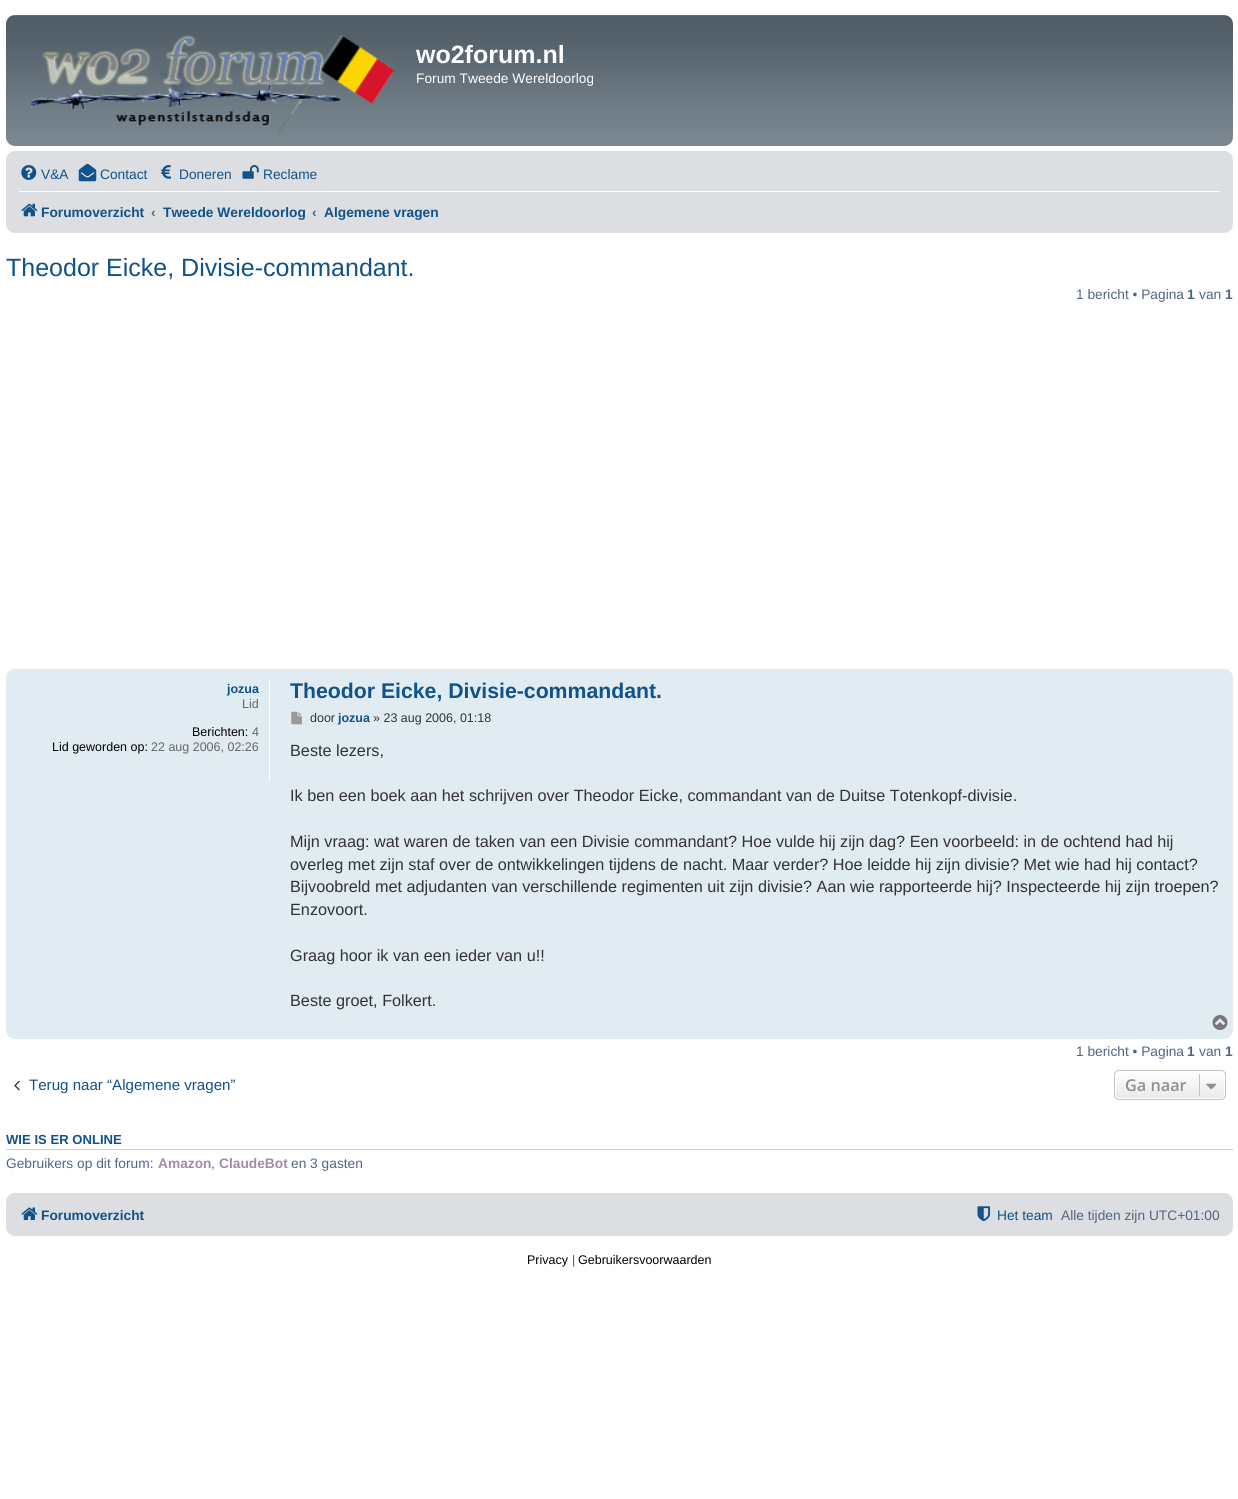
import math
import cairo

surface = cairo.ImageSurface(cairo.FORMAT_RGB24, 1238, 1499)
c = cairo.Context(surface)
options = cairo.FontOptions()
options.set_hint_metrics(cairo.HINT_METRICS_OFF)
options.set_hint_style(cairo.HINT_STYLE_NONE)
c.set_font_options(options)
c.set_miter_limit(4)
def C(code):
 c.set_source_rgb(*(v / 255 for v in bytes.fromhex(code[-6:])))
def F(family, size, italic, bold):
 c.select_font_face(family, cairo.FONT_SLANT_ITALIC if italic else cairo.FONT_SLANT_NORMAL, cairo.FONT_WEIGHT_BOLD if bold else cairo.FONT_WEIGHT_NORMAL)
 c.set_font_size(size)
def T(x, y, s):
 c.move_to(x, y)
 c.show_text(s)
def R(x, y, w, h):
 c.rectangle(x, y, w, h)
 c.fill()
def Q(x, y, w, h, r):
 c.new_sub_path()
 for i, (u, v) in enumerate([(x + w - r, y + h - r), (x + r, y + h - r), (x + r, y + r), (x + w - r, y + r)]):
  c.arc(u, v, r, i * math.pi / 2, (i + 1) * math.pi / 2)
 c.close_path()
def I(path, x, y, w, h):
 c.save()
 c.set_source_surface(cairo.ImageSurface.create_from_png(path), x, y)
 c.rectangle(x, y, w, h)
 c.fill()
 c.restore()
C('ffffff')
c.paint()
gradient = cairo.LinearGradient(619,15,619,146)
gradient.add_color_stop_rgba(0,0.431,0.467,0.498,1)
gradient.add_color_stop_rgba(.01,0.314,0.361,0.396,1)
gradient.add_color_stop_rgba(.2,0.337,0.384,0.42,1)
gradient.add_color_stop_rgba(.75,0.451,0.498,0.533,1)
gradient.add_color_stop_rgba(1,0.486,0.533,0.569,1)
c.set_source(gradient)
Q(6,15,1227,131,9)
c.fill()
I('1.png',31,35,364,98)
F('Liberation Sans',25,0,1)
C('ffffff')
T(416,63,'wo2forum.nl')
F('Liberation Sans',13.75,0,0)
T(416,83,'Forum Tweede Wereldoorlog')
C('dcdee2')
Q(6,151,1227,82,9)
c.fill()
I('2.png',21,165,16,15)
C('105289')
T(41,179,'V&A')
I('3.png',78,163,19,19)
T(100,179,'Contact')
I('4.png',161,165,11,14)
T(179,179,'Doneren')
I('5.png',242,165,17,14)
T(263,179,'Reclame')
C('ffffff')
R(19,191,1201,1)
I('6.png',21,203,17,14)
F('Liberation Sans',13.75,0,1)
C('105289')
T(41,217,'Forumoverzicht')
C('536482')
T(151,217,'‹')
C('105289')
T(163,217,'Tweede Wereldoorlog')
C('536482')
T(312,217,'‹')
C('105289')
T(324,217,'Algemene vragen')
F('Liberation Sans',25,0,0)
T(6,276,'Theodor Eicke, Divisie-commandant.')
F('Liberation Sans',13.75,0,0)
C('536482')
T(1076,299,'1 bericht • Pagina')
F('Liberation Sans',13.75,0,1)
T(1187,299,'1')
F('Liberation Sans',13.75,0,0)
T(1199,299,'van')
F('Liberation Sans',13.75,0,1)
T(1225,299,'1')
C('e1ebf2')
Q(6,669,1227,370,9)
c.fill()
C('ffffff')
R(269,681,1,100)
F('Liberation Sans',12.5,0,1)
C('105289')
T(227,693,'jozua')
F('Liberation Sans',12.5,0,0)
C('666666')
T(242,708,'Lid')
C('000000')
T(192,736,'Berichten:')
C('666666')
T(252,736,'4')
C('000000')
T(52,751,'Lid geworden op:')
C('666666')
T(151,751,'22 aug 2006, 02:26')
F('Liberation Sans',21.25,0,1)
C('105289')
T(290,698,'Theodor Eicke, Divisie-commandant.')
I('7.png',291,711,11,14)
F('Liberation Sans',12.5,0,0)
C('333333')
T(310,722,'door')
F('Liberation Sans',12.5,0,1)
C('105289')
T(338,722,'jozua')
F('Liberation Sans',12.5,0,0)
C('333333')
T(373,722,'» 23 aug 2006, 01:18')
F('Liberation Sans',16.25,0,0)
T(290,756,'Beste lezers,')
T(290,801,'Ik ben een boek aan het schrijven over Theodor Eicke, commandant van de Duitse Totenkopf-divisie.')
T(290,847,'Mijn vraag: wat waren de taken van een Divisie commandant? Hoe vulde hij zijn dag? Een voorbeeld: in de ochtend had hij')
T(290,870,'overleg met zijn staf over de ontwikkelingen tijdens de nacht. Maar verder? Hoe leidde hij zijn divisie? Met wie had hij contact?')
T(290,892,'Bijvoobreld met adjudanten van verschillende regimenten uit zijn divisie? Aan wie rapporteerde hij? Inspecteerde hij zijn troepen?')
T(290,915,'Enzovoort.')
T(290,961,'Graag hoor ik van een ieder van u!!')
T(290,1006,'Beste groet, Folkert.')
I('8.png',1212,1015,16,15)
F('Liberation Sans',13.75,0,0)
C('536482')
T(1076,1056,'1 bericht • Pagina')
F('Liberation Sans',13.75,0,1)
T(1187,1056,'1')
F('Liberation Sans',13.75,0,0)
T(1199,1056,'van')
F('Liberation Sans',13.75,0,1)
T(1225,1056,'1')
I('9.png',14,1080,6,11)
F('Liberation Sans',15.1,0,0)
C('105289')
T(29,1090,'Terug naar “Algemene vragen”')
c.save()
Q(1114,1070,112,30,5)
c.clip()
gradient = cairo.LinearGradient(1170,1071,1170,1099)
gradient.add_color_stop_rgba(0,1,1,1,1)
gradient.add_color_stop_rgba(1,0.914,0.914,0.914,1)
c.set_source(gradient)
R(1114,1071,112,28)
c.restore()
Q(1115.5,1071.5,109,27,3.5)
C('ffffff')
c.set_line_width(1)
c.stroke()
Q(1114.5,1070.5,111,29,4.5)
C('c7c3bf')
c.stroke()
F('Open Sans SemiBold',16.25,0,0)
C('8f8f8f')
T(1125,1091,'Ga naar')
C('c7c3bf')
R(1199,1074,1,22)
I('10.png',1206,1083,11,7)
C('cccccc')
R(6,1149,1227,1)
F('Liberation Sans',13.1,0,1)
C('105289')
T(6,1144,'WIE IS ER ONLINE')
F('Liberation Sans',13.75,0,0)
C('536482')
T(6,1168,'Gebruikers op dit forum:')
F('Liberation Sans',13.75,0,1)
C('9e8da7')
T(158,1168,'Amazon')
F('Liberation Sans',13.75,0,0)
C('536482')
T(211,1168,',')
F('Liberation Sans',13.75,0,1)
C('9e8da7')
T(219,1168,'ClaudeBot')
F('Liberation Sans',13.75,0,0)
C('536482')
T(291,1168,'en 3 gasten')
C('dcdee2')
Q(6,1193,1227,43,9)
c.fill()
I('11.png',21,1207,17,13)
F('Liberation Sans',13.75,0,1)
C('105289')
T(41,1220,'Forumoverzicht')
I('12.png',977,1206,13,16)
F('Liberation Sans',13.75,0,0)
T(997,1220,'Het team')
C('536482')
T(1061,1220,'Alle tijden zijn UTC+01:00')
F('Liberation Sans',12.5,0,0)
C('000000')
T(527,1264,'Privacy')
C('555555')
T(572,1264,'|')
C('000000')
T(578,1264,'Gebruikersvoorwaarden')
surface.write_to_png('o.png')
